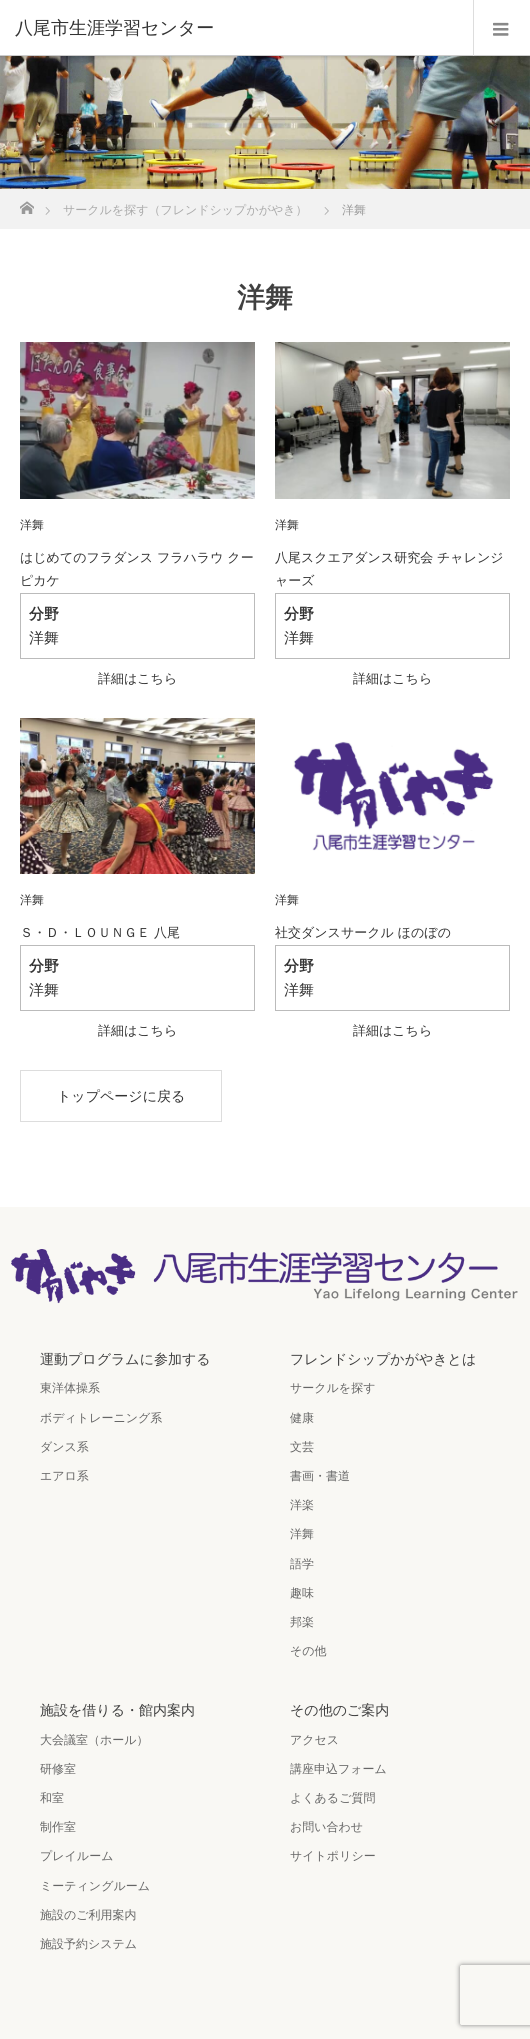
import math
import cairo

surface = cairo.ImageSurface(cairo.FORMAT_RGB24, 530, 2039)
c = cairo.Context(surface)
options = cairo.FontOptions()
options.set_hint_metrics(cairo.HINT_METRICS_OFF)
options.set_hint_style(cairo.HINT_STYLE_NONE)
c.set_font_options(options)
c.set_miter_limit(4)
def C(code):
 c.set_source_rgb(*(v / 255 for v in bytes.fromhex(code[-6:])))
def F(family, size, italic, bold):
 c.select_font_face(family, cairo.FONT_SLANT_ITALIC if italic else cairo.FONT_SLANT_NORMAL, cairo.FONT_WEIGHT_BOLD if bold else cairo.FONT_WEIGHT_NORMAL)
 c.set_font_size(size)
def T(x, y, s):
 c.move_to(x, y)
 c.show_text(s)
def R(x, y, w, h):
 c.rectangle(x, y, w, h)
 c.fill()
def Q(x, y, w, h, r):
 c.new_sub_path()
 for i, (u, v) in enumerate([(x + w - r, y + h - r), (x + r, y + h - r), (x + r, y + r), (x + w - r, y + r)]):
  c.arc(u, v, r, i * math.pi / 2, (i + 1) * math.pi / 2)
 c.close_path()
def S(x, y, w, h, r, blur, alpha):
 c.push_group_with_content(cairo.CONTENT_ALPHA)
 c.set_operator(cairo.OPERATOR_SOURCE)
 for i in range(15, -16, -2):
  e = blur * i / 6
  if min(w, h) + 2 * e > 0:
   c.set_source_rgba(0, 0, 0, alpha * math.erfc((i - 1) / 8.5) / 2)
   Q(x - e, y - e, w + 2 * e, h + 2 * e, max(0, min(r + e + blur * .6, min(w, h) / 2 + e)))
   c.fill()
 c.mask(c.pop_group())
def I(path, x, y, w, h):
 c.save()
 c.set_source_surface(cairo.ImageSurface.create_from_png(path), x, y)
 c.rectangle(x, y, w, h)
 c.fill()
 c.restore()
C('ffffff')
c.paint()
I('2.png',0,56,530,133)
c.save()
c.rectangle(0,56,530,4)
c.clip()
C('000000')
S(0,1,530,56,0,2,.2)
c.restore()
C('cccccc')
R(0,55,530,1)
F('WenQuanYi Zen Hei Medium',18,0,0)
C('333333')
T(15,34,'八尾市生涯学習センター')
C('dddddd')
R(473,0,1,56)
I('1.png',493,22,16,14)
C('f2f2f2')
R(0,189,530,40)
I('3.png',20,201,14,13)
I('4.png',45,207,5,8)
F('WenQuanYi Zen Hei Medium',12,0,0)
C('aaaaaa')
T(63,214,'サークルを探す（フレンドシップかがやき）')
I('4.png',324,207,5,8)
C('999999')
T(342,214,'洋舞')
F('WenQuanYi Zen Hei',28,0,1)
C('404040')
T(237,307,'洋舞')
I('5.png',20,342,235,157)
F('WenQuanYi Zen Hei Medium',12,0,0)
C('333333')
T(20,529,'洋舞')
F('WenQuanYi Zen Hei Medium',13,0,0)
T(20,562,'はじめてのフラダンス フラハラウ クー')
T(20,585,'ピカケ')
C('bbbbbb')
R(20,593,235,1)
R(254,593,1,66)
R(20,593,1,33)
F('WenQuanYi Zen Hei',15,0,1)
C('333333')
T(29,619,'分野')
C('bbbbbb')
R(20,658,235,1)
R(20,626,1,33)
F('WenQuanYi Zen Hei Medium',15,0,0)
C('333333')
T(29,643,'洋舞')
F('WenQuanYi Zen Hei Medium',13,0,0)
T(98,683,'詳細はこちら')
I('6.png',275,342,235,157)
F('WenQuanYi Zen Hei Medium',12,0,0)
T(275,529,'洋舞')
F('WenQuanYi Zen Hei Medium',13,0,0)
T(275,562,'八尾スクエアダンス研究会 チャレンジ')
T(275,585,'ャーズ')
C('bbbbbb')
R(275,593,235,1)
R(509,593,1,66)
R(275,593,1,33)
F('WenQuanYi Zen Hei',15,0,1)
C('333333')
T(284,619,'分野')
C('bbbbbb')
R(275,658,235,1)
R(275,626,1,33)
F('WenQuanYi Zen Hei Medium',15,0,0)
C('333333')
T(284,643,'洋舞')
F('WenQuanYi Zen Hei Medium',13,0,0)
T(353,683,'詳細はこちら')
I('7.png',20,718,235,156)
F('WenQuanYi Zen Hei Medium',12,0,0)
T(20,904,'洋舞')
F('WenQuanYi Zen Hei Medium',13,0,0)
T(20,937,'Ｓ・Ｄ・ＬＯＵＮＧＥ 八尾')
C('bbbbbb')
R(20,945,235,1)
R(254,945,1,66)
R(20,945,1,33)
F('WenQuanYi Zen Hei',15,0,1)
C('333333')
T(29,971,'分野')
C('bbbbbb')
R(20,1010,235,1)
R(20,978,1,33)
F('WenQuanYi Zen Hei Medium',15,0,0)
C('333333')
T(29,995,'洋舞')
F('WenQuanYi Zen Hei Medium',13,0,0)
T(98,1035,'詳細はこちら')
I('8.png',293,741,201,110)
F('WenQuanYi Zen Hei Medium',12,0,0)
T(275,904,'洋舞')
F('WenQuanYi Zen Hei Medium',13,0,0)
T(275,937,'社交ダンスサークル ほのぼの')
C('bbbbbb')
R(275,945,235,1)
R(509,945,1,66)
R(275,945,1,33)
F('WenQuanYi Zen Hei',15,0,1)
C('333333')
T(284,971,'分野')
C('bbbbbb')
R(275,1010,235,1)
R(275,978,1,33)
F('WenQuanYi Zen Hei Medium',15,0,0)
C('333333')
T(284,995,'洋舞')
F('WenQuanYi Zen Hei Medium',13,0,0)
T(353,1035,'詳細はこちら')
c.rectangle(20.5,1070.5,201,51)
C('dddddd')
c.set_line_width(1)
c.stroke()
F('WenQuanYi Zen Hei Medium',14,0,0)
C('333333')
T(57,1101,'トップページに戻る')
C('f9f8f4')
R(0,1207,530,832)
I('9.png',11,1249,507,55)
C('404040')
T(40,1364,'運動プログラムに参加する')
F('WenQuanYi Zen Hei Medium',12,0,0)
C('666666')
T(40,1392,'東洋体操系')
T(40,1422,'ボディトレーニング系')
T(40,1451,'ダンス系')
T(40,1480,'エアロ系')
F('WenQuanYi Zen Hei Medium',14,0,0)
C('404040')
T(290,1364,'フレンドシップかがやきとは')
F('WenQuanYi Zen Hei Medium',12,0,0)
C('666666')
T(290,1392,'サークルを探す')
T(290,1422,'健康')
T(290,1451,'文芸')
T(290,1480,'書画・書道')
T(290,1509,'洋楽')
T(290,1538,'洋舞')
T(290,1568,'語学')
T(290,1597,'趣味')
T(290,1626,'邦楽')
T(290,1655,'その他')
F('WenQuanYi Zen Hei Medium',14,0,0)
C('404040')
T(40,1715,'施設を借りる・館内案内')
F('WenQuanYi Zen Hei Medium',12,0,0)
C('666666')
T(40,1744,'大会議室（ホール）')
T(40,1773,'研修室')
T(40,1802,'和室')
T(40,1831,'制作室')
T(40,1860,'プレイルーム')
T(40,1890,'ミーティングルーム')
T(40,1919,'施設のご利用案内')
T(40,1948,'施設予約システム')
F('WenQuanYi Zen Hei Medium',14,0,0)
C('404040')
T(290,1715,'その他のご案内')
F('WenQuanYi Zen Hei Medium',12,0,0)
C('666666')
T(290,1744,'アクセス')
T(290,1773,'講座申込フォーム')
T(290,1802,'よくあるご質問')
T(290,1831,'お問い合わせ')
T(290,1860,'サイトポリシー')
c.save()
c.set_fill_rule(cairo.FILL_RULE_EVEN_ODD)
c.new_path()
c.move_to(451,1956)
c.line_to(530,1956)
c.line_to(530,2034)
c.line_to(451,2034)
c.close_path()
c.move_to(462,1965)
c.line_to(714,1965)
c.curve_to(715,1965,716,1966,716,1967)
c.line_to(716,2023)
c.curve_to(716,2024,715,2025,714,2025)
c.line_to(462,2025)
c.curve_to(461,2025,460,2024,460,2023)
c.line_to(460,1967)
c.curve_to(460,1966,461,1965,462,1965)
c.close_path()
c.clip()
C('808080')
S(460,1965,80,60,2,2.5,1)
c.restore()
surface.write_to_png('o.png')
